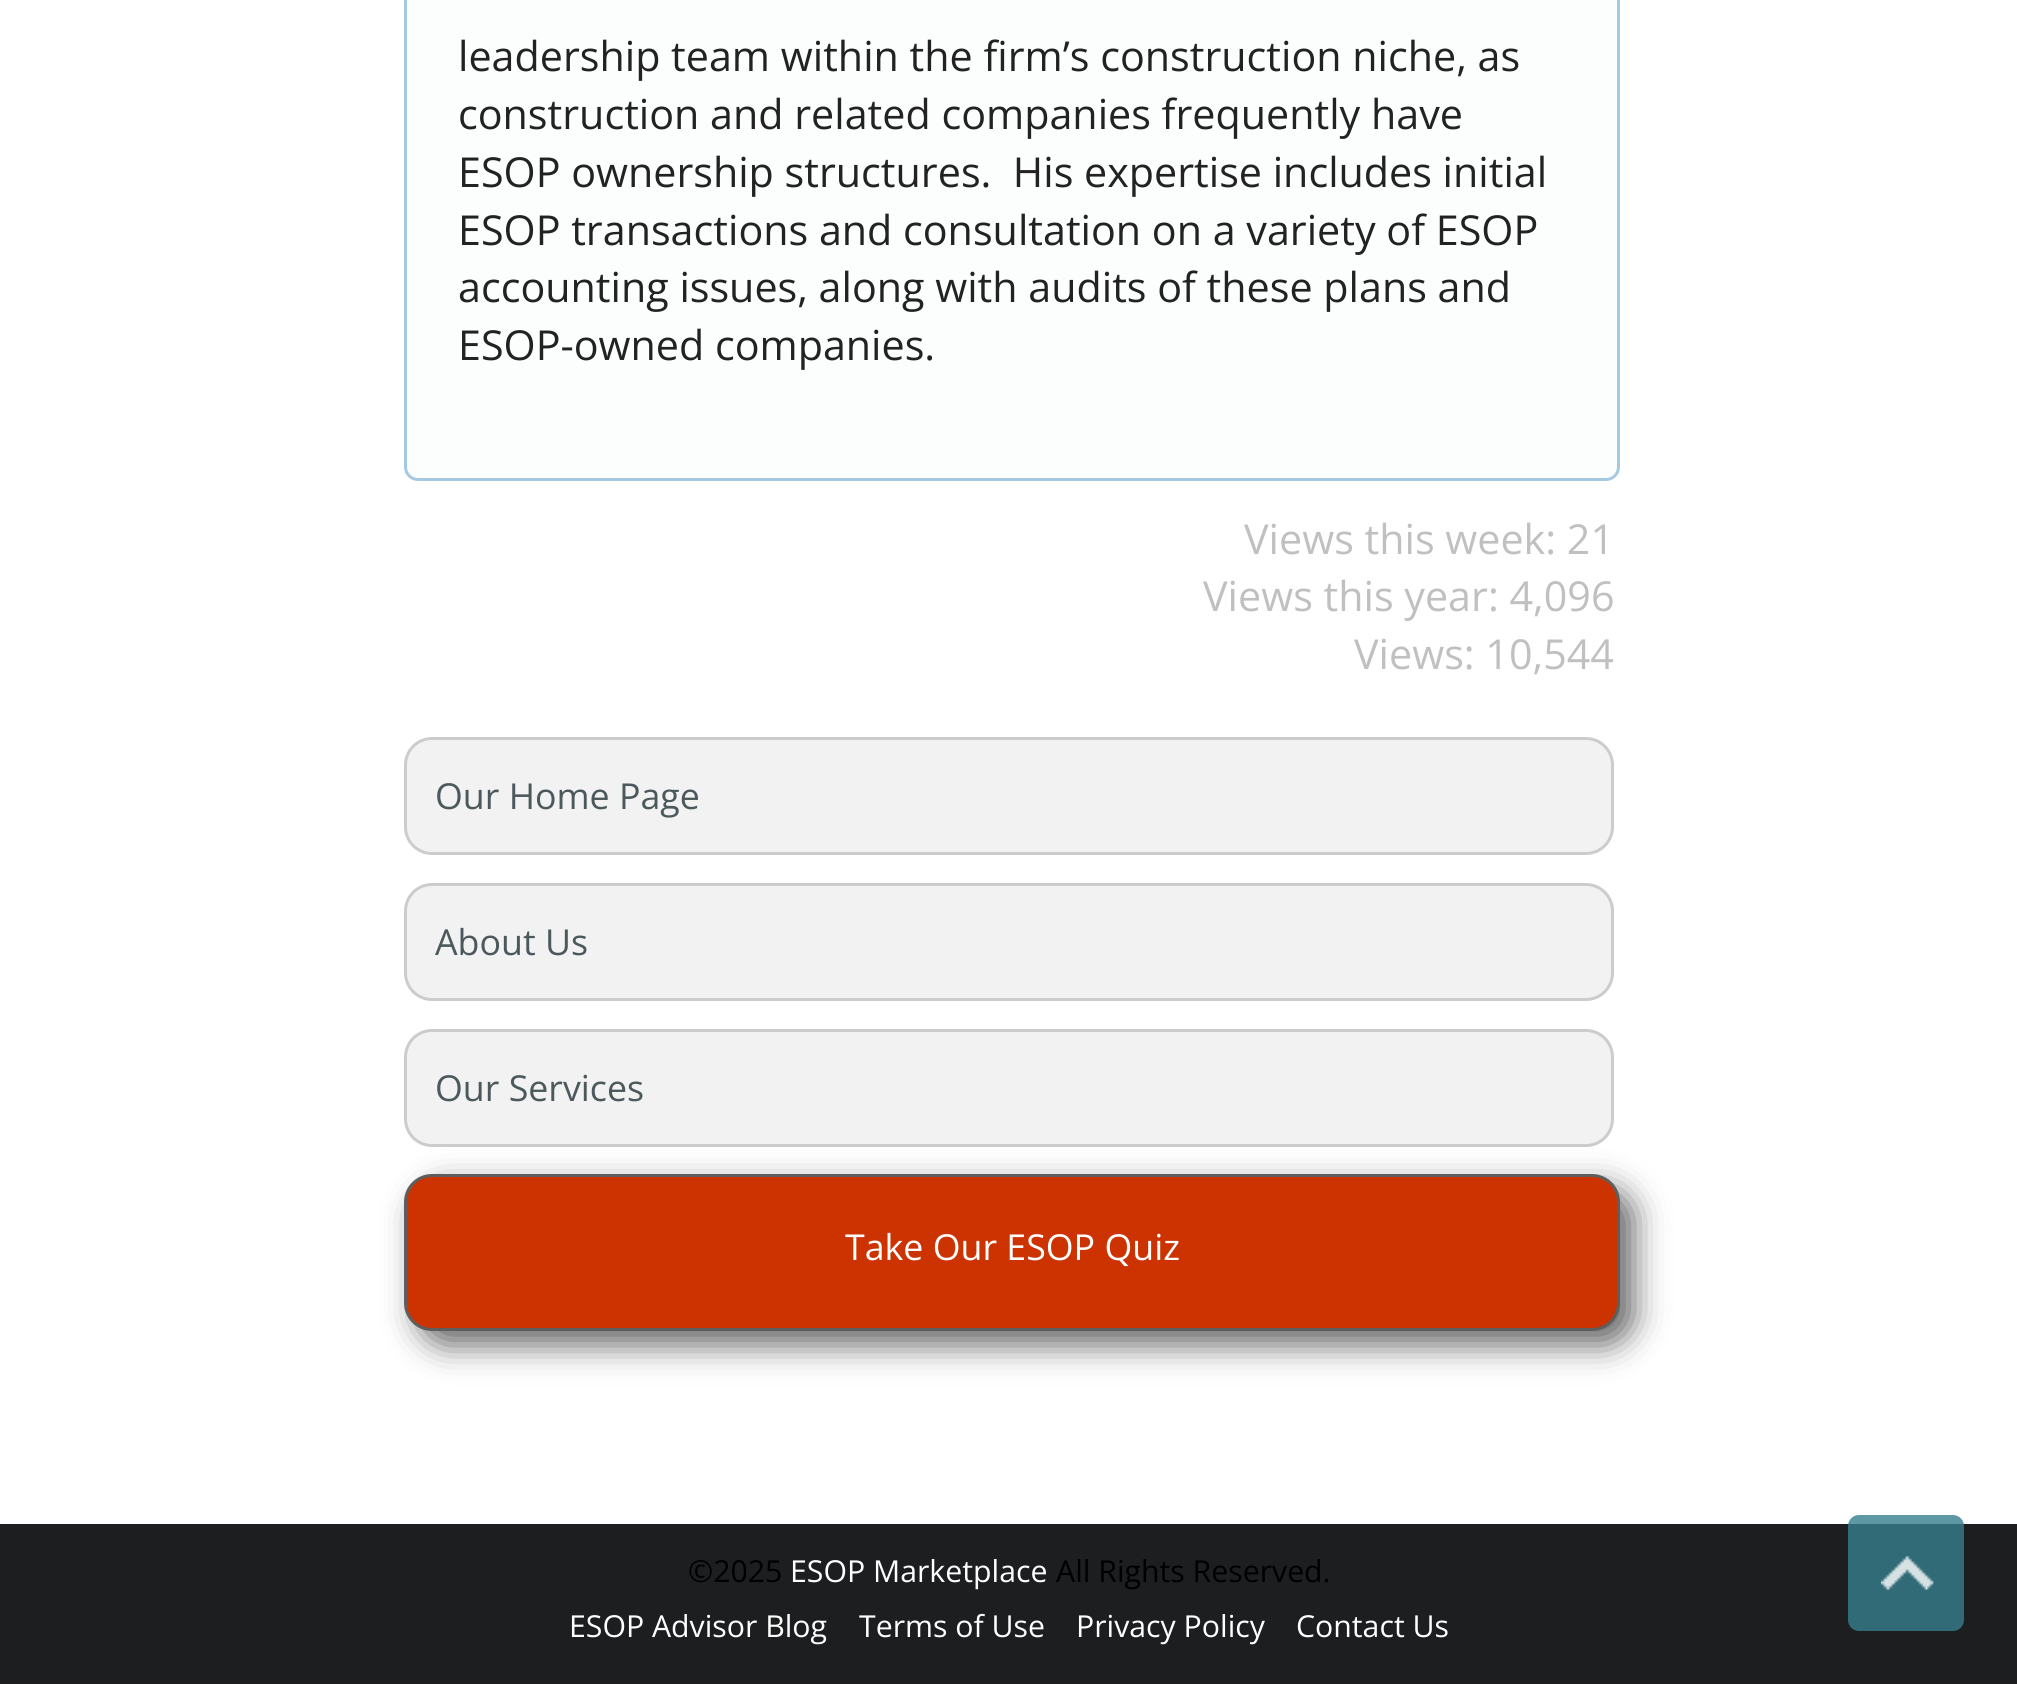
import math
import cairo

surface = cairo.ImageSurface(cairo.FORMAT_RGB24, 2017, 1684)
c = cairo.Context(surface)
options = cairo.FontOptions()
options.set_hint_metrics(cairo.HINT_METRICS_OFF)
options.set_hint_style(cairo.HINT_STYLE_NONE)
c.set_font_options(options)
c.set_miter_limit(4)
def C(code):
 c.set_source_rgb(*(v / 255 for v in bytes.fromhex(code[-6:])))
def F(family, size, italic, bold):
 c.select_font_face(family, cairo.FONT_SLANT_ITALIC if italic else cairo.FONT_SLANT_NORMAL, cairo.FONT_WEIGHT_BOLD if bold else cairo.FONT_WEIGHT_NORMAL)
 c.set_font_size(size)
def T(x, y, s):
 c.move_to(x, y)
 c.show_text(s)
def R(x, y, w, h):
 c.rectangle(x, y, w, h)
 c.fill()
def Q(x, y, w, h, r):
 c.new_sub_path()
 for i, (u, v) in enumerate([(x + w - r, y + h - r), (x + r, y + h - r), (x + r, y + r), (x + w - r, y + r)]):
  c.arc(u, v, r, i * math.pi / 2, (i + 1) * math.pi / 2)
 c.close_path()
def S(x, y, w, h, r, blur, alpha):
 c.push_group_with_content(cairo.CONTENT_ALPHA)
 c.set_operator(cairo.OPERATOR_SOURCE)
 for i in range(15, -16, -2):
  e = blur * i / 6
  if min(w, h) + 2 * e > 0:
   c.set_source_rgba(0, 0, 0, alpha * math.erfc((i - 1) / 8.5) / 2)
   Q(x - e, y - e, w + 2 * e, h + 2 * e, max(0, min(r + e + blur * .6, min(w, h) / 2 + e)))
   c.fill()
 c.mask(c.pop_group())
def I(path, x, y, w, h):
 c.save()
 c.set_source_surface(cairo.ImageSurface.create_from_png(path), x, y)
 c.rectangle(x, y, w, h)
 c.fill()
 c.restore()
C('ffffff')
c.paint()
C('fcfdfd')
Q(405.5,-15.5,1213,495,12.5)
c.fill_preserve()
C('a6c9e2')
c.set_line_width(3)
c.stroke()
F('Open Sans',41.25,0,0)
C('222222')
T(458,71,'leadership team within the firm’s construction niche, as')
T(458,129,'construction and related companies frequently have')
T(458,187,'ESOP ownership structures.  His expertise includes initial')
T(458,245,'ESOP transactions and consultation on a variety of ESOP')
T(458,302,'accounting issues, along with audits of these plans and')
T(458,360,'ESOP-owned companies.')
C('c0c0c0')
T(1244,554,'Views this week: 21')
T(1203,611,'Views this year: 4,096')
T(1354,669,'Views: 10,544')
C('f2f2f2')
Q(405.5,738.5,1207,115,26.5)
c.fill_preserve()
C('cccccc')
c.stroke()
F('Open Sans',35.75,0,0)
C('4c595c')
T(435,809,'Our Home Page')
C('f2f2f2')
Q(405.5,884.5,1207,115,26.5)
c.fill_preserve()
C('cccccc')
c.stroke()
C('4c595c')
T(435,955,'About Us')
C('f2f2f2')
Q(405.5,1030.5,1207,115,26.5)
c.fill_preserve()
C('cccccc')
c.stroke()
C('4c595c')
T(435,1101,'Our Services')
C('666666')
S(418,1188,1216,157,28,16.5,1)
C('cc3300')
Q(405.5,1175.5,1213,154,26.5)
c.fill_preserve()
C('5e5e5e')
c.stroke()
C('ffffff')
T(845,1260,'Take Our ESOP Quiz')
C('1c1e1f')
R(0,1524,2017,160)
F('Open Sans',30.25,0,0)
C('000000')
T(688,1582,'©2025')
C('ffffff')
T(790,1582,'ESOP Marketplace')
C('000000')
T(1056,1582,'All Rights Reserved.')
C('ffffff')
T(569,1637,'ESOP Advisor Blog')
T(859,1637,'Terms of Use')
T(1076,1637,'Privacy Policy')
T(1296,1637,'Contact Us')
c.set_source_rgba(0.216,0.498,0.561,0.8)
Q(1848,1515,116,116,11)
c.fill()
I('1.png',1881,1556,53,35)
surface.write_to_png('o.png')
